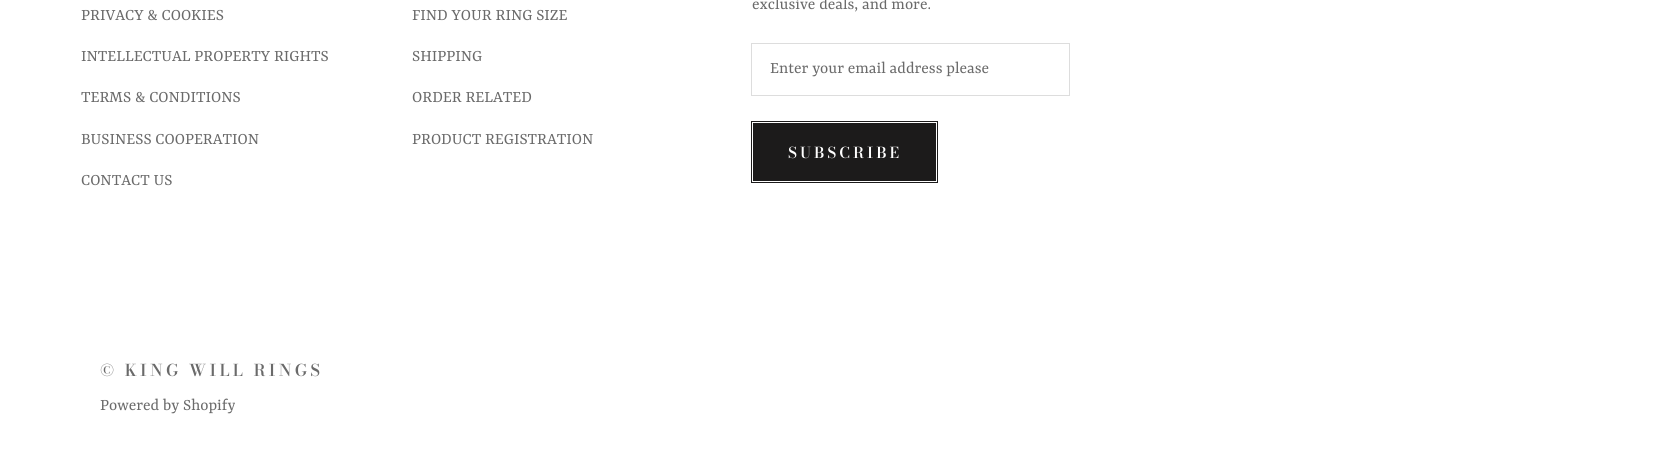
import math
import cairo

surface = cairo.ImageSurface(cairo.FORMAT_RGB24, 1672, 473)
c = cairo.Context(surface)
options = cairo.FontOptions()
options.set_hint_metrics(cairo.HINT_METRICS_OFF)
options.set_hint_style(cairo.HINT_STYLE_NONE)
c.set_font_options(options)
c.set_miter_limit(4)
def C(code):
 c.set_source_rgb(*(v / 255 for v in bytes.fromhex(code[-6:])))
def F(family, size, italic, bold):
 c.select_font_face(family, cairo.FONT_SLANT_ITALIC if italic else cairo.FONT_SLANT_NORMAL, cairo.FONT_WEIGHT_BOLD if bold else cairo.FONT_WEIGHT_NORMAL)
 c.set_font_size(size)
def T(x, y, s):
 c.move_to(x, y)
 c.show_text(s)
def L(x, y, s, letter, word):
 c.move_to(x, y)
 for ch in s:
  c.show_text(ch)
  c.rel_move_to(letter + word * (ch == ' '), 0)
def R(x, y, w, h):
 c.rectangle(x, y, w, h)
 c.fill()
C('ffffff')
c.paint()
F('Rasa',17.5,0,0)
C('6a6a6a')
T(81,20,'PRIVACY & COOKIES')
T(81,61,'INTELLECTUAL PROPERTY RIGHTS')
T(81,102,'TERMS & CONDITIONS')
T(81,144,'BUSINESS COOPERATION')
T(81,185,'CONTACT US')
T(412,20,'FIND YOUR RING SIZE')
T(412,61,'SHIPPING')
T(412,102,'ORDER RELATED')
T(412,144,'PRODUCT REGISTRATION')
T(752,9,'exclusive deals, and more.')
c.rectangle(751.5,43.5,318,52)
C('dddddd')
c.set_line_width(1)
c.stroke()
C('6a6a6a')
T(770,73,'Enter your email address please')
c.rectangle(751.5,121.5,186,61)
C('1c1b1b')
c.stroke()
R(753,123,183,58)
F('Bodoni Moda SemiBold',15,0,0)
C('ffffff')
L(788,158,'SUBSCRIBE',3,0)
F('Bodoni Moda SemiBold',16.25,0,0)
C('6a6a6a')
L(100,376,'© KING WILL RINGS',3.25,0)
F('Rasa',17.5,0,0)
T(100,410,'Powered by Shopify')
surface.write_to_png('o.png')
